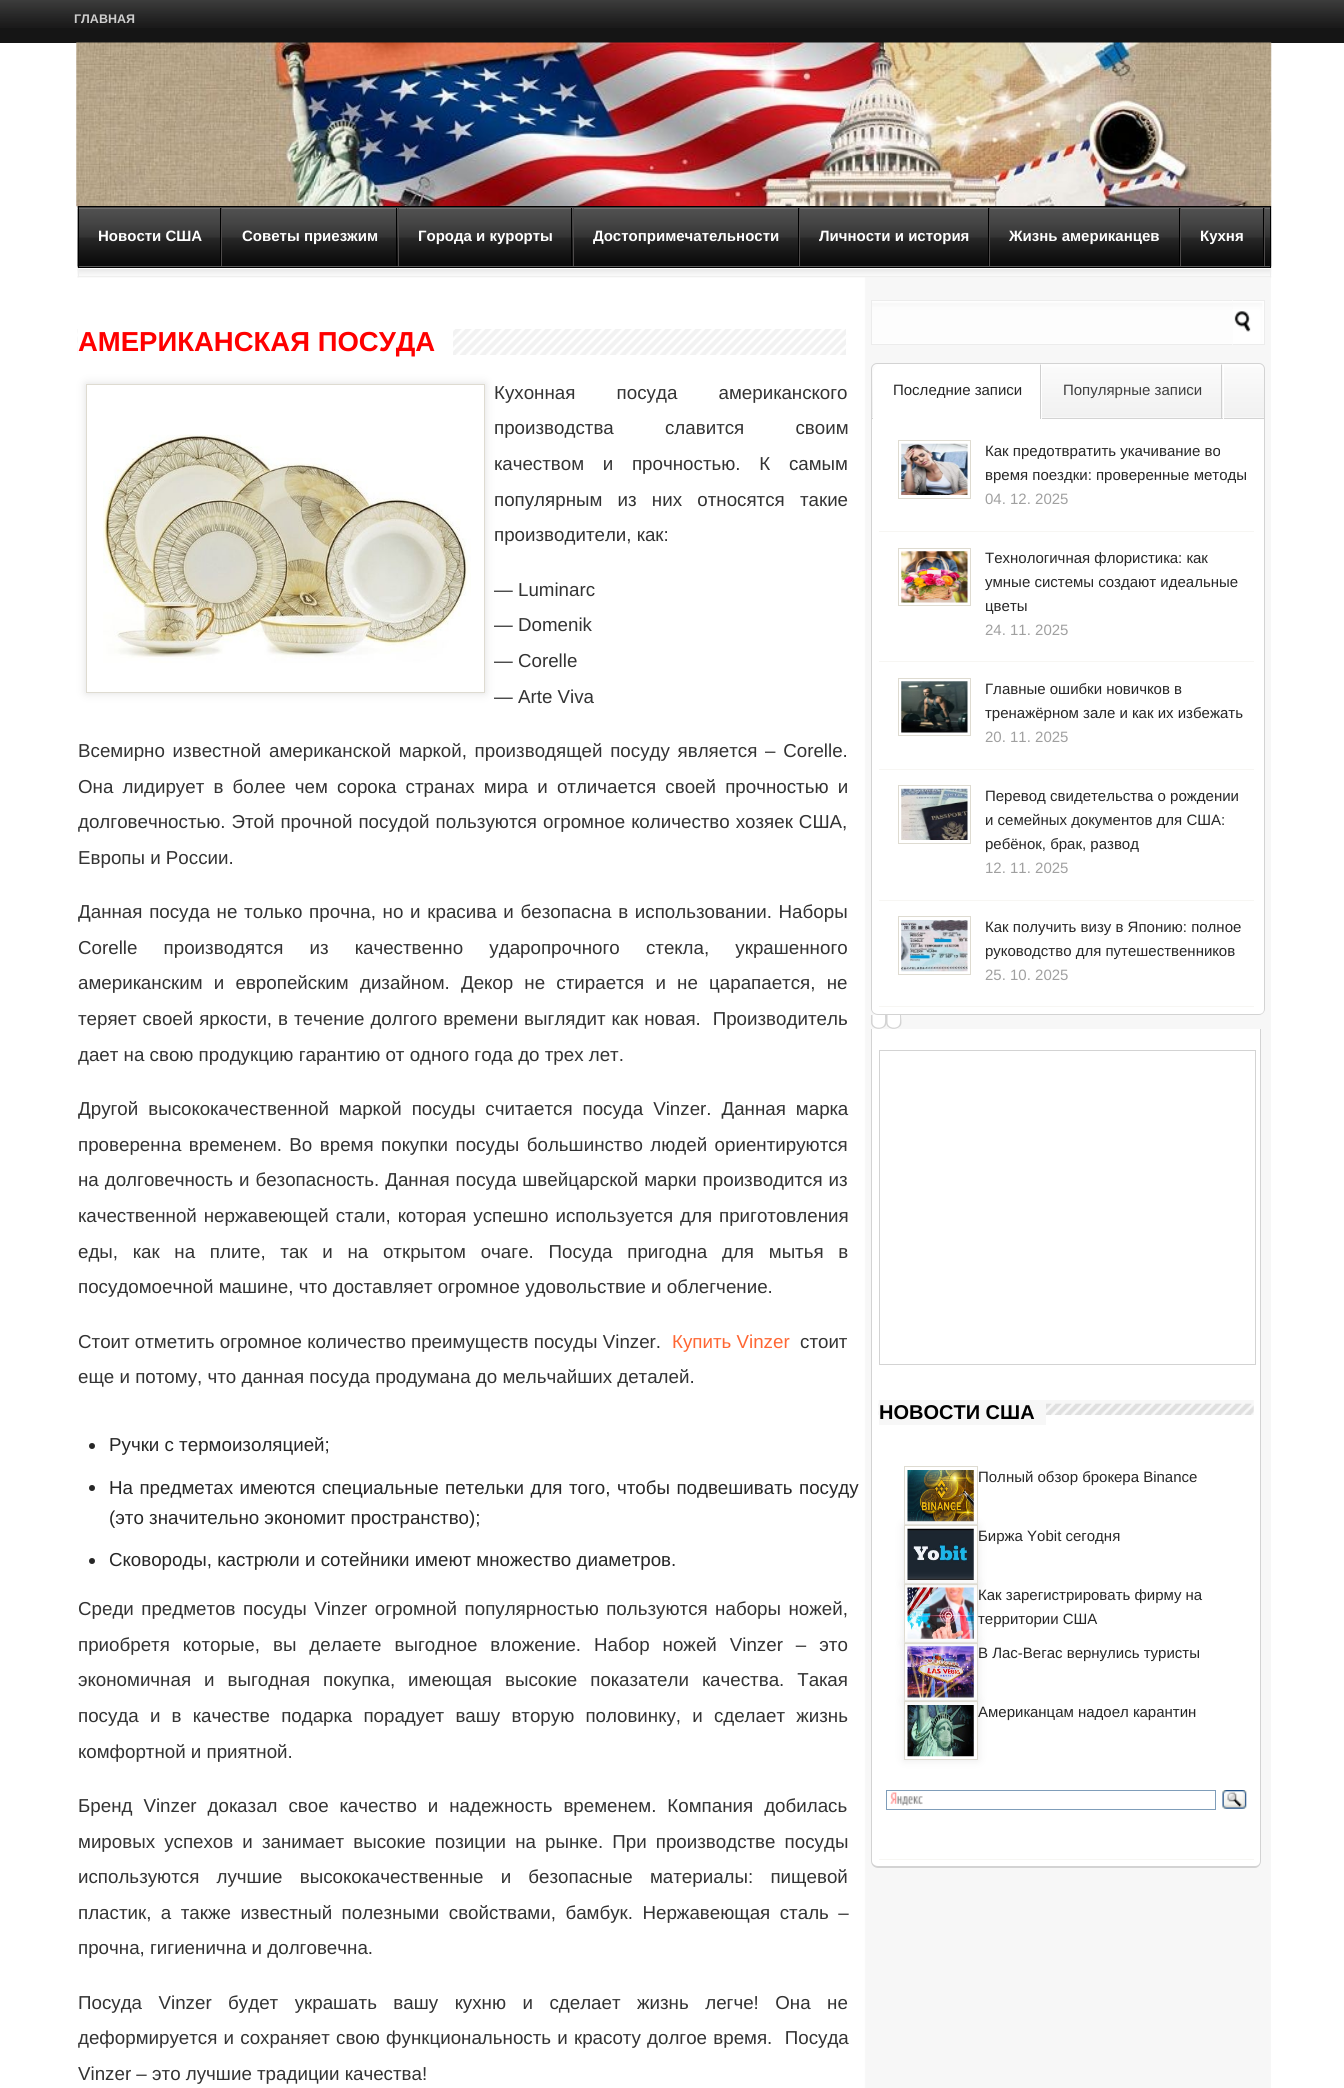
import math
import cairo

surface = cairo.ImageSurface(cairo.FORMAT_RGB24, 1344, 2088)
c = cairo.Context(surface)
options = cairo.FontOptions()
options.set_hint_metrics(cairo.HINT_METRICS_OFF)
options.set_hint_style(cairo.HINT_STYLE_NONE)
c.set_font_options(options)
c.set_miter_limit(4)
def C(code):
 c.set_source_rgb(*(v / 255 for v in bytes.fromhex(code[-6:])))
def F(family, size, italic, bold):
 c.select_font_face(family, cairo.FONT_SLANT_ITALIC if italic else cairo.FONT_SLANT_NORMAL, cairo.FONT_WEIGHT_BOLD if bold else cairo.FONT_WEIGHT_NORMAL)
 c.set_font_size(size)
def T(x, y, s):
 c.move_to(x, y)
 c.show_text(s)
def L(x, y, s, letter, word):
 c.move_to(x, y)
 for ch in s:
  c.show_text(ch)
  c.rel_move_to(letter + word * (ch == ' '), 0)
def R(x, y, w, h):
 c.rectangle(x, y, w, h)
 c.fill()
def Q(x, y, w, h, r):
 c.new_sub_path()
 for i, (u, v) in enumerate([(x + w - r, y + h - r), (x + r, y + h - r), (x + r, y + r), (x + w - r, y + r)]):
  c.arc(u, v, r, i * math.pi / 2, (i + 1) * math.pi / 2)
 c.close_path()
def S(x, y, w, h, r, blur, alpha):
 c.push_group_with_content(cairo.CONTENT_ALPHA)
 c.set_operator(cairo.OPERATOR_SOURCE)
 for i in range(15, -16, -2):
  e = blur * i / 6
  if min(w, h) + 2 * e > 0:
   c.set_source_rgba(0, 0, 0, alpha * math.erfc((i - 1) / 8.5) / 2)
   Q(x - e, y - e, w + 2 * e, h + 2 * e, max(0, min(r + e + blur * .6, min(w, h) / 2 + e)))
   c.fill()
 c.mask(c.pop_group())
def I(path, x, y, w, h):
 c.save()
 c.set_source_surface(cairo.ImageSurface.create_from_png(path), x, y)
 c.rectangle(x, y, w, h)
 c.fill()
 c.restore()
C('ffffff')
c.paint()
C('151515')
R(0,28,1344,15)
I('1.png',0,0,1344,28)
F('Liberation Sans',12.5,0,1)
C('cecece')
T(74,23,'ГЛАВНАЯ')
I('2.png',76,42,1196,165)
I('4.png',77,267,1195,11)
I('3.png',77,206,1195,62)
c.rectangle(78.5,206.5,1192,61)
C('000000')
c.set_line_width(1)
c.stroke()
C('4d4a4a')
R(221,208,1,58)
C('000000')
R(220,208,1,58)
F('Liberation Sans',15,0,1)
C('ffffff')
T(98,241,'Новости США')
C('4d4a4a')
R(398,208,1,58)
C('000000')
R(396,208,1,58)
C('ffffff')
T(242,241,'Советы приезжим')
C('4d4a4a')
R(573,208,1,58)
C('000000')
R(571,208,1,58)
C('ffffff')
T(418,241,'Города и курорты')
C('4d4a4a')
R(799,208,1,58)
C('000000')
R(798,208,1,58)
C('ffffff')
T(593,241,'Достопримечательности')
C('4d4a4a')
R(989,208,1,58)
C('000000')
R(988,208,1,58)
C('ffffff')
T(819,241,'Личности и история')
C('4d4a4a')
R(1180,208,1,58)
C('000000')
R(1179,208,1,58)
C('ffffff')
T(1009,241,'Жизнь американцев')
C('4d4a4a')
R(1264,208,1,58)
C('000000')
R(1263,208,1,58)
C('ffffff')
T(1200,241,'Кухня')
R(78,268,1193,1)
C('eeeeee')
R(1270,268,1,10)
R(78,268,1,10)
I('5.png',78,277,1193,1811)
I('6.png',77,329,769,26)
C('ffffff')
R(78,329,375,26)
F('Liberation Sans',27.5,0,1)
C('ff0000')
T(78,351,'АМЕРИКАНСКАЯ ПОСУДА')
C('dfdfdf')
S(86,384,399,309,0,4.5,1)
C('ffffff')
c.rectangle(86.5,384.5,398,308)
c.fill_preserve()
C('dedbd1')
c.stroke()
I('7.png',103,434,368,229)
F('Liberation Sans',18.75,0,0)
C('333333')
L(494,399,'Кухонная посуда американского',0,36)
L(494,434,'производства славится своим',0,46)
L(494,470,'качеством и прочностью. К самым',0,13.5)
L(494,506,'популярным из них относятся такие',0,10)
T(494,541,'производители, как:')
T(494,596,'— Luminarc')
T(494,631,'— Domenik')
T(494,667,'— Corelle')
T(494,703,'— Arte Viva')
L(78,757,'Всемирно известной американской маркой, производящей посуду является – Corelle.',0,2.5)
L(78,793,'Она лидирует в более чем сорока странах мира и отличается своей прочностью и',0,4)
L(78,828,'долговечностью. Этой прочной посудой пользуются огромное количество хозяек США,',0,.75)
T(78,864,'Европы и России.')
L(78,918,'Данная посуда не только прочна, но и красива и безопасна в использовании. Наборы',0,1.5)
L(78,954,'Corelle производятся из качественно ударопрочного стекла, украшенного',0,21)
L(78,989,'американским и европейским дизайном. Декор не стирается и не царапается, не',0,6)
L(78,1025,'теряет своей яркости, в течение долгого времени выглядит как новая.  Производитель',0,.75)
T(78,1061,'дает на свою продукцию гарантию от одного года до трех лет.')
L(78,1115,'Другой высококачественной маркой посуды считается посуда Vinzer. Данная марка',0,4.75)
L(78,1151,'проверенна временем. Во время покупки посуды большинство людей ориентируются',0,2.25)
L(78,1186,'на долговечность и безопасность. Данная посуда швейцарской марки производится из',0,.75)
L(78,1222,'качественной нержавеющей стали, которая успешно используется для приготовления',0,1.75)
L(78,1258,'еды, как на плите, так и на открытом очаге. Посуда пригодна для мытья в',0,9.5)
T(78,1293,'посудомоечной машине, что доставляет огромное удовольствие и облегчение.')
T(78,1348,'Стоит отметить огромное количество преимуществ посуды Vinzer.')
C('ff6633')
T(672,1348,'Купить Vinzer')
C('333333')
T(800,1348,'стоит')
T(78,1383,'еще и потому, что данная посуда продумана до мельчайших деталей.')
C('272727')
c.new_path()
c.arc(92,1446,3,0,2 * math.pi)
c.fill()
T(109,1451,'Ручки с термоизоляцией;')
c.new_path()
c.arc(92,1488,3,0,2 * math.pi)
c.fill()
L(109,1494,'На предметах имеются специальные петельки для того, чтобы подвешивать посуду',0,1.25)
T(109,1524,'(это значительно экономит пространство);')
c.new_path()
c.arc(92,1561,3,0,2 * math.pi)
c.fill()
T(109,1566,'Сковороды, кастрюли и сотейники имеют множество диаметров.')
C('333333')
L(78,1615,'Среди предметов посуды Vinzer огромной популярностью пользуются наборы ножей,',0,2.25)
L(78,1651,'приобретя которые, вы делаете выгодное вложение. Набор ножей Vinzer – это',0,7.75)
L(78,1686,'экономичная и выгодная покупка, имеющая высокие показатели качества. Такая',0,7.75)
L(78,1722,'посуда и в качестве подарка порадует вашу вторую половинку, и сделает жизнь',0,6)
T(78,1758,'комфортной и приятной.')
L(78,1812,'Бренд Vinzer доказал свое качество и надежность временем. Компания добилась',0,5.75)
L(78,1848,'мировых успехов и занимает высокие позиции на рынке. При производстве посуды',0,3.9)
L(78,1883,'используются лучшие высококачественные и безопасные материалы: пищевой',0,12)
L(78,1919,'пластик, а также известный полезными свойствами, бамбук. Нержавеющая сталь –',0,4.25)
T(78,1954,'прочна, гигиенична и долговечна.')
L(78,2009,'Посуда Vinzer будет украшать вашу кухню и сделает жизнь легче! Она не',0,11.25)
L(78,2044,'деформируется и сохраняет свою функциональность и красоту долгое время.  Посуда',0,1)
T(78,2080,'Vinzer – это лучшие традиции качества!')
I('8.png',872,301,361,43)
C('ececec')
R(871,300,362,1)
R(871,344,362,1)
R(871,300,1,45)
I('9.png',1232,300,32,45)
R(1233,300,32,1)
R(1264,300,1,45)
R(1233,344,32,1)
I('10.png',872,364,393,53)
c.new_path()
c.move_to(877,363.5)
c.line_to(1259,363.5)
c.curve_to(1262,363.5,1264.5,366,1264.5,369)
c.line_to(1264.5,418.5)
c.line_to(871.5,418.5)
c.line_to(871.5,369)
c.curve_to(871.5,366,874,363.5,877,363.5)
c.close_path()
C('d3d3d3')
c.stroke()
C('ffffff')
R(1041,364,1,56)
c.new_path()
c.move_to(882,364)
c.line_to(1041,364)
c.line_to(1041,420)
c.line_to(873,420)
c.line_to(873,373)
c.curve_to(873,368,877,364,882,364)
c.close_path()
c.fill()
C('cfcfcf')
c.new_path()
c.move_to(1041,420)
c.line_to(1041,364)
c.line_to(1040,365)
c.line_to(1040,419)
c.close_path()
c.fill()
F('Liberation Sans',15,0,0)
C('272727')
T(893,395,'Последние записи')
C('ffffff')
R(1223,364,1,56)
C('cfcfcf')
c.new_path()
c.move_to(1222,364)
c.line_to(1222,420)
c.line_to(1221,419)
c.line_to(1221,365)
c.close_path()
c.fill()
C('3f3f3f')
T(1063,395,'Популярные записи')
C('ffffff')
c.new_path()
c.move_to(871,419)
c.line_to(1265,419)
c.line_to(1265,1009)
c.curve_to(1265,1012.5,1262.5,1015,1259,1015)
c.line_to(877,1015)
c.curve_to(873.5,1015,871,1012.5,871,1009)
c.close_path()
c.fill()
C('d3d3d3')
c.set_fill_rule(cairo.FILL_RULE_EVEN_ODD)
c.new_path()
c.move_to(871,419)
c.line_to(1265,419)
c.line_to(1265,1009)
c.curve_to(1265,1012,1262,1015,1259,1015)
c.line_to(878,1015)
c.curve_to(874,1015,871,1012,871,1009)
c.close_path()
c.move_to(872,419)
c.line_to(1264,419)
c.line_to(1264,1009)
c.curve_to(1264,1012,1262,1014,1259,1014)
c.line_to(878,1014)
c.curve_to(875,1014,872,1012,872,1009)
c.close_path()
c.fill()
C('f7f6f3')
R(879,531,375,1)
c.rectangle(898.5,440.5,72,58)
C('dedbd1')
c.stroke()
I('11.png',901,443,67,52)
C('272727')
T(985,456,'Как предотвратить укачивание во')
T(985,480,'время поездки: проверенные методы')
C('a0a0a0')
T(985,504,'04. 12. 2025')
C('f7f6f3')
R(879,661,375,1)
c.rectangle(898.5,548.5,72,57)
C('dedbd1')
c.stroke()
I('12.png',901,551,67,52)
C('272727')
T(985,563,'Технологичная флористика: как')
T(985,587,'умные системы создают идеальные')
T(985,611,'цветы')
C('a0a0a0')
T(985,635,'24. 11. 2025')
C('f7f6f3')
R(879,769,375,1)
c.rectangle(898.5,678.5,72,57)
C('dedbd1')
c.stroke()
I('13.png',901,681,67,52)
C('272727')
T(985,694,'Главные ошибки новичков в')
T(985,718,'тренажёрном зале и как их избежать')
C('a0a0a0')
T(985,742,'20. 11. 2025')
C('f7f6f3')
R(879,900,375,1)
c.rectangle(898.5,785.5,72,58)
C('dedbd1')
c.stroke()
I('14.png',901,788,67,52)
C('272727')
T(985,801,'Перевод свидетельства о рождении')
T(985,825,'и семейных документов для США:')
T(985,849,'ребёнок, брак, развод')
C('a0a0a0')
T(985,873,'12. 11. 2025')
C('f7f6f3')
R(879,1006,375,1)
c.rectangle(898.5,916.5,72,58)
C('dedbd1')
c.stroke()
I('15.png',901,920,67,52)
C('272727')
T(985,932,'Как получить визу в Японию: полное')
T(985,956,'руководство для путешественников')
C('a0a0a0')
T(985,980,'25. 10. 2025')
C('ffffff')
c.new_path()
c.move_to(871,1015)
c.line_to(886,1015)
c.line_to(886,1023)
c.curve_to(886,1026.5,883.5,1029,880,1029)
c.line_to(877,1029)
c.curve_to(873.5,1029,871,1026.5,871,1023)
c.close_path()
c.fill()
C('d3d3d3')
c.new_path()
c.move_to(871,1015)
c.line_to(886,1015)
c.curve_to(886,1018,887,1022.5,886,1025)
c.curve_to(883,1031,871,1030,871,1022.5)
c.close_path()
c.move_to(872.5,1015)
c.line_to(885,1015)
c.curve_to(885,1017.5,885.5,1022,884.5,1024.5)
c.curve_to(882.5,1029.5,872.5,1028.5,872.5,1022.5)
c.close_path()
c.fill()
C('ffffff')
c.new_path()
c.move_to(886,1015)
c.line_to(901,1015)
c.line_to(901,1023)
c.curve_to(901,1026.5,898.5,1029,895,1029)
c.line_to(892,1029)
c.curve_to(888.5,1029,886,1026.5,886,1023)
c.close_path()
c.fill()
C('d3d3d3')
c.new_path()
c.move_to(886,1015)
c.line_to(901,1015)
c.curve_to(901,1018,902,1022.5,901,1025)
c.curve_to(898,1031,886,1030,886,1022.5)
c.close_path()
c.move_to(887.5,1015)
c.line_to(900,1015)
c.curve_to(900,1017.5,900.5,1022,899.5,1024.5)
c.curve_to(897.5,1029.5,887.5,1028.5,887.5,1022.5)
c.close_path()
c.fill()
C('ffffff')
c.new_path()
c.move_to(871,1029)
c.line_to(1261,1029)
c.line_to(1261,1862)
c.curve_to(1261,1865.5,1258.5,1868,1255,1868)
c.line_to(877,1868)
c.curve_to(873.5,1868,871,1865.5,871,1862)
c.close_path()
c.fill()
C('d3d3d3')
c.new_path()
c.move_to(871,1029)
c.line_to(1261,1029)
c.line_to(1261,1861)
c.curve_to(1261,1865,1258,1868,1255,1868)
c.line_to(878,1868)
c.curve_to(874,1868,871,1865,871,1861)
c.close_path()
c.move_to(872,1029)
c.line_to(1260,1029)
c.line_to(1260,1861)
c.curve_to(1260,1864,1258,1866,1255,1866)
c.line_to(878,1866)
c.curve_to(875,1866,872,1864,872,1861)
c.close_path()
c.fill()
C('f7f6f3')
R(879,1859,375,1)
c.rectangle(879.5,1050.5,376,314)
C('d3d3d3')
c.stroke()
I('16.png',878,1400,376,15)
C('f7f7f7')
R(879,1403,167,22)
F('Liberation Sans',20,0,1)
C('000000')
T(879,1419,'НОВОСТИ США')
c.rectangle(904.5,1466.5,73,58)
C('dedbd1')
c.stroke()
I('17.png',907,1470,67,52)
F('Liberation Sans',15,0,0)
C('272727')
T(978,1482,'Полный обзор брокера Binance')
c.save()
c.new_path()
c.move_to(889,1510)
c.line_to(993,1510)
c.line_to(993,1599)
c.line_to(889,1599)
c.close_path()
c.move_to(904,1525)
c.line_to(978,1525)
c.line_to(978,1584)
c.line_to(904,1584)
c.close_path()
c.clip()
C('eaeaea')
S(904,1525,74,59,0,4.5,1)
c.restore()
c.rectangle(904.5,1525.5,73,58)
C('dedbd1')
c.stroke()
I('18.png',907,1528,67,52)
C('272727')
T(978,1541,'Биржа Yobit сегодня')
c.save()
c.new_path()
c.move_to(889,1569)
c.line_to(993,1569)
c.line_to(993,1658)
c.line_to(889,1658)
c.close_path()
c.move_to(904,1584)
c.line_to(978,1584)
c.line_to(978,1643)
c.line_to(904,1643)
c.close_path()
c.clip()
C('eaeaea')
S(904,1584,74,59,0,4.5,1)
c.restore()
c.rectangle(904.5,1584.5,73,58)
C('dedbd1')
c.stroke()
I('19.png',907,1587,67,52)
C('272727')
T(978,1600,'Как зарегистрировать фирму на')
T(978,1624,'территории США')
c.save()
c.new_path()
c.move_to(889,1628)
c.line_to(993,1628)
c.line_to(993,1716)
c.line_to(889,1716)
c.close_path()
c.move_to(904,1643)
c.line_to(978,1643)
c.line_to(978,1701)
c.line_to(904,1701)
c.close_path()
c.clip()
C('eaeaea')
S(904,1643,74,58,0,4.5,1)
c.restore()
c.rectangle(904.5,1643.5,73,57)
C('dedbd1')
c.stroke()
I('20.png',907,1646,67,52)
C('272727')
T(978,1658,'В Лас-Вегас вернулись туристы')
c.save()
c.new_path()
c.move_to(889,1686)
c.line_to(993,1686)
c.line_to(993,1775)
c.line_to(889,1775)
c.close_path()
c.move_to(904,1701)
c.line_to(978,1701)
c.line_to(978,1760)
c.line_to(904,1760)
c.close_path()
c.clip()
C('eaeaea')
S(904,1701,74,59,0,4.5,1)
c.restore()
c.rectangle(904.5,1701.5,73,58)
C('dedbd1')
c.stroke()
I('21.png',907,1705,67,52)
C('272727')
T(978,1717,'Американцам надоел карантин')
I('22.png',890,1792,33,14)
c.rectangle(886.5,1790.5,329,19)
C('7f9db9')
c.stroke()
I('23.png',1222,1790,25,19)
surface.write_to_png('o.png')
